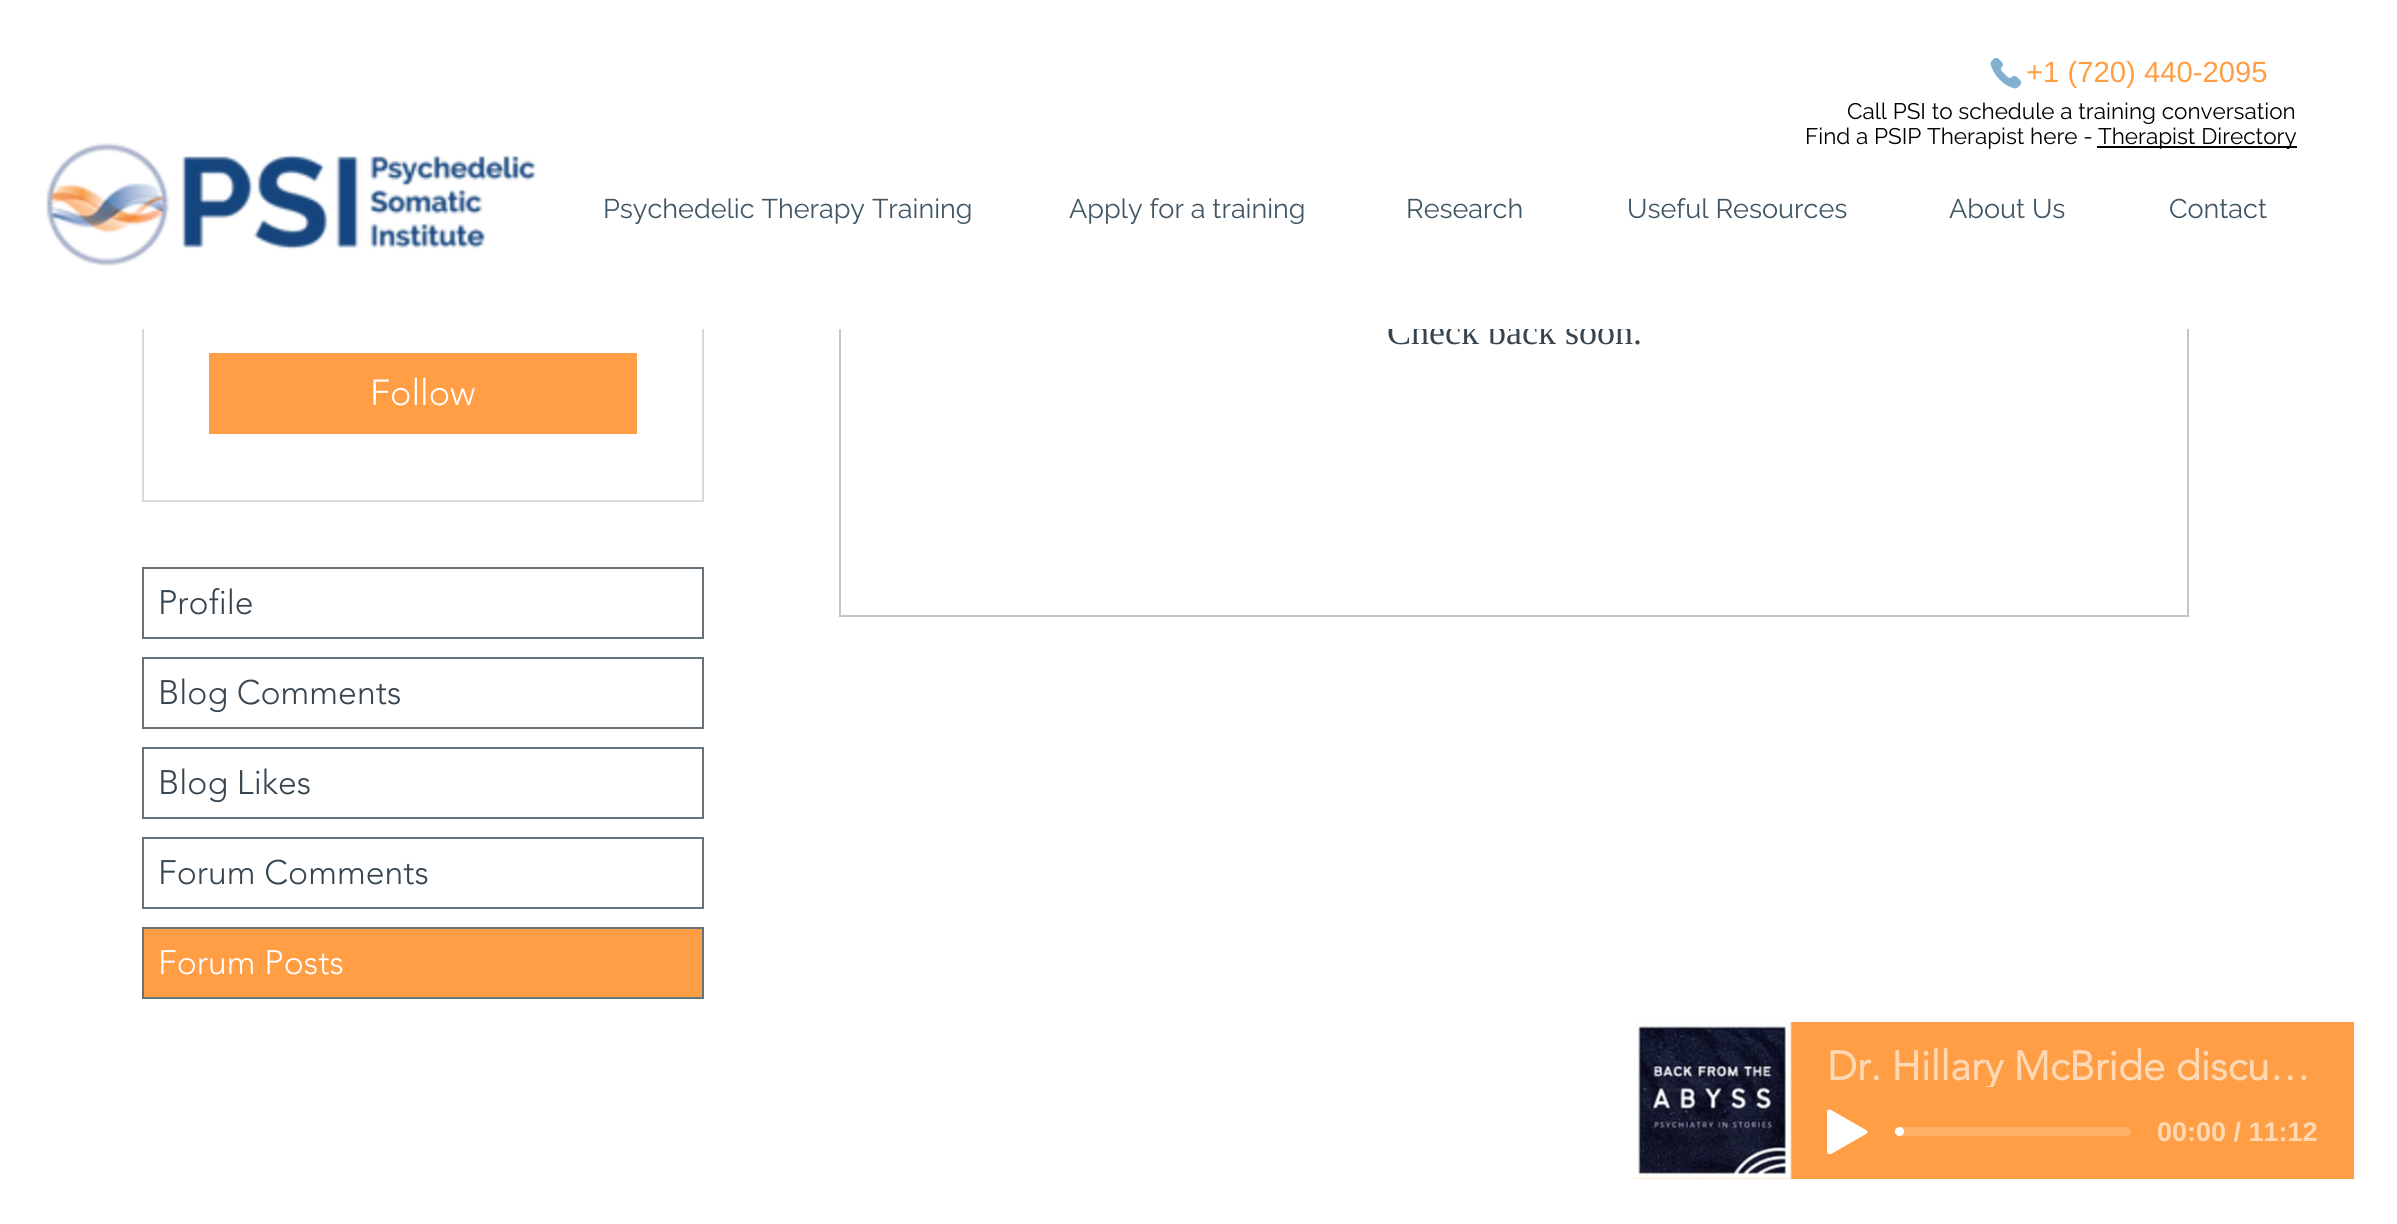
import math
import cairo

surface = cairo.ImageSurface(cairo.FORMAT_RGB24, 2397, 1224)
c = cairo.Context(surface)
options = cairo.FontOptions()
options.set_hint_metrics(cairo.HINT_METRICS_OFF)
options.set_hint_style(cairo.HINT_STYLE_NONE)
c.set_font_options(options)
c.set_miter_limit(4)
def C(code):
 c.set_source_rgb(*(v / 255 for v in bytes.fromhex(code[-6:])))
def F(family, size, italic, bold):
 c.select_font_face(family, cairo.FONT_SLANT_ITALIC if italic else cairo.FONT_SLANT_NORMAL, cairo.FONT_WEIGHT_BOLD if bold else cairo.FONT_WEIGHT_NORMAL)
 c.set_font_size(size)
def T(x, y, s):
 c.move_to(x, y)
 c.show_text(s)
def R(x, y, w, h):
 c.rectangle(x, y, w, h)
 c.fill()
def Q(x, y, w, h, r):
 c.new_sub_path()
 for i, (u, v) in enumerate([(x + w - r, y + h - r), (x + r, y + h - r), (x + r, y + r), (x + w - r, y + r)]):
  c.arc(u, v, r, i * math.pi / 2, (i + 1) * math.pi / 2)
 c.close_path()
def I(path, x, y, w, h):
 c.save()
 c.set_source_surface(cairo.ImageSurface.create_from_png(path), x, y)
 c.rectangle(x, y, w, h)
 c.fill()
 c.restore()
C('ffffff')
c.paint()
c.rectangle(840,-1,1348,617)
C('c3c7ca')
c.stroke()
F('Liberation Serif',36,0,0)
C('36454f')
T(1387,344,'Check back soon.')
c.rectangle(143,-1,560,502)
C('d7dadc')
c.stroke()
C('ffffff')
R(142,0,2047,329)
I('1.png',1990,57,32,32)
F('Liberation Sans',29.25,0,0)
C('ff9e45')
T(2026,82,'+1 (720) 440-2095')
F('Raleway',22.5,0,0)
C('000000')
T(1847,119,'Call PSI to schedule a training conversation')
T(1805,144,'Find a PSIP Therapist here -')
R(2097,146,200,2)
T(2098,144,'Therapist Directory')
I('2.png',46,143,491,123)
F('Raleway',27,0,0)
C('405664')
T(603,218,'Psychedelic Therapy Training')
T(1069,218,'Apply for a training')
T(1406,218,'Research')
T(1627,218,'Useful Resources')
T(1949,218,'About Us')
T(2169,218,'Contact')
C('ff9e45')
R(209,353,428,81)
F('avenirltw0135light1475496 Light',36,0,0)
C('ffffff')
T(370,405,'Follow')
c.rectangle(143,568,560,70)
C('68747b')
c.stroke()
F('avenirltw0135light1475496 Light',33.75,0,0)
C('36454f')
T(158,614,'Profile')
c.rectangle(143,658,560,70)
C('68747b')
c.stroke()
C('36454f')
T(158,704,'Blog Comments')
c.rectangle(143,748,560,70)
C('68747b')
c.stroke()
C('36454f')
T(158,794,'Blog Likes')
c.rectangle(143,838,560,70)
C('68747b')
c.stroke()
C('36454f')
T(158,884,'Forum Comments')
C('ff9e45')
c.rectangle(143,928,560,70)
c.fill_preserve()
C('68747b')
c.stroke()
C('ffffff')
T(158,974,'Forum Posts')
C('ff9e45')
R(1634,1022,720,157)
I('3.png',1634,1022,158,157)
c.save()
c.rectangle(1827,1046,491,41)
c.clip()
F('avenirltw0135light1475496',40.5,0,1)
C('ffd8b5')
T(1827,1080,'Dr. Hillary McBride discu…')
c.restore()
c.save()
c.rectangle(1827,1109,41,45)
c.clip()
C('ffffff')
c.new_path()
c.move_to(1866,1130)
c.curve_to(1868,1131,1868,1133,1866,1134)
c.line_to(1831,1154)
c.curve_to(1829,1155,1827,1154,1827,1151)
c.line_to(1827,1112)
c.curve_to(1827,1110,1829,1109,1831,1110)
c.close_path()
c.fill()
c.restore()
C('ffb16a')
Q(1899,1127,232,9,4.5)
c.fill()
C('ffffff')
c.arc(1899.5,1131.5,4.5,0,2 * math.pi)
c.fill()
F('Liberation Sans',27,0,1)
C('ffd8b5')
T(2157,1141,'00:00 / 11:12')
surface.write_to_png('o.png')
